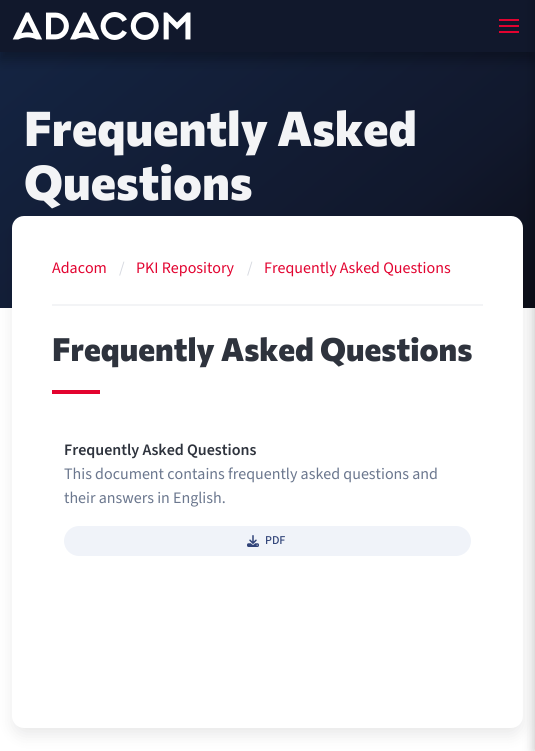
import math
import cairo

surface = cairo.ImageSurface(cairo.FORMAT_RGB24, 535, 751)
c = cairo.Context(surface)
options = cairo.FontOptions()
options.set_hint_metrics(cairo.HINT_METRICS_OFF)
options.set_hint_style(cairo.HINT_STYLE_NONE)
c.set_font_options(options)
c.set_miter_limit(4)
def C(code):
 c.set_source_rgb(*(v / 255 for v in bytes.fromhex(code[-6:])))
def F(family, size, italic, bold):
 c.select_font_face(family, cairo.FONT_SLANT_ITALIC if italic else cairo.FONT_SLANT_NORMAL, cairo.FONT_WEIGHT_BOLD if bold else cairo.FONT_WEIGHT_NORMAL)
 c.set_font_size(size)
def T(x, y, s):
 c.move_to(x, y)
 c.show_text(s)
def R(x, y, w, h):
 c.rectangle(x, y, w, h)
 c.fill()
def Q(x, y, w, h, r):
 c.new_sub_path()
 for i, (u, v) in enumerate([(x + w - r, y + h - r), (x + r, y + h - r), (x + r, y + r), (x + w - r, y + r)]):
  c.arc(u, v, r, i * math.pi / 2, (i + 1) * math.pi / 2)
 c.close_path()
def S(x, y, w, h, r, blur, alpha):
 c.push_group_with_content(cairo.CONTENT_ALPHA)
 c.set_operator(cairo.OPERATOR_SOURCE)
 for i in range(15, -16, -2):
  e = blur * i / 6
  if min(w, h) + 2 * e > 0:
   c.set_source_rgba(0, 0, 0, alpha * math.erfc((i - 1) / 8.5) / 2)
   Q(x - e, y - e, w + 2 * e, h + 2 * e, max(0, min(r + e + blur * .6, min(w, h) / 2 + e)))
   c.fill()
 c.mask(c.pop_group())
def I(path, x, y, w, h):
 c.save()
 c.set_source_surface(cairo.ImageSurface.create_from_png(path), x, y)
 c.rectangle(x, y, w, h)
 c.fill()
 c.restore()
C('ffffff')
c.paint()
gradient = cairo.LinearGradient(99,-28,436,388)
gradient.add_color_stop_rgba(0,0.078,0.141,0.259,1)
gradient.add_color_stop_rgba(.71,0.067,0.094,0.173,1)
gradient.add_color_stop_rgba(1,0.047,0.055,0.094,1)
c.set_source(gradient)
R(0,52,535,256)
C('000000')
S(0,8,535,52,0,6,.3)
C('11182c')
R(0,0,535,52)
I('1.png',12,12,179,28)
C('e20330')
R(499,19,20,2)
R(499,25,20,2)
R(499,31,20,2)
F('Commissioner ExtraBold',48,0,0)
C('f3f4f6')
T(24,146,'Frequently Asked')
T(24,200,'Questions')
C('090a0c')
S(14,226,507,508,10,8,.1)
C('ffffff')
Q(12,216,511,512,12)
c.fill()
C('000000')
S(533,0,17,751,0,5,.2)
F('Source Sans 3',16,0,0)
C('e20330')
T(52,273,'Adacom')
C('d6d9e0')
T(119,273,'/')
C('e20330')
T(136,273,'PKI Repository')
C('d6d9e0')
T(247,273,'/')
C('e20330')
T(264,273,'Frequently Asked Questions')
C('f3f4f6')
R(52,304,431,2)
F('Commissioner ExtraBold',32,0,0)
C('2e333d')
T(52,361,'Frequently Asked Questions')
C('e3032e')
R(52,390,48,4)
F('Source Sans 3 SemiBold',16,0,0)
C('2e333d')
T(64,455,'Frequently Asked Questions')
F('Source Sans 3',16,0,0)
C('6b778e')
T(64,479,'This document contains frequently asked questions and')
T(64,503,'their answers in English.')
C('f0f3f9')
Q(64,526,407,30,15)
c.fill()
I('2.png',247,535,12,12)
F('Source Sans 3 Medium',12,0,0)
C('304378')
T(265,544,'PDF')
surface.write_to_png('o.png')
